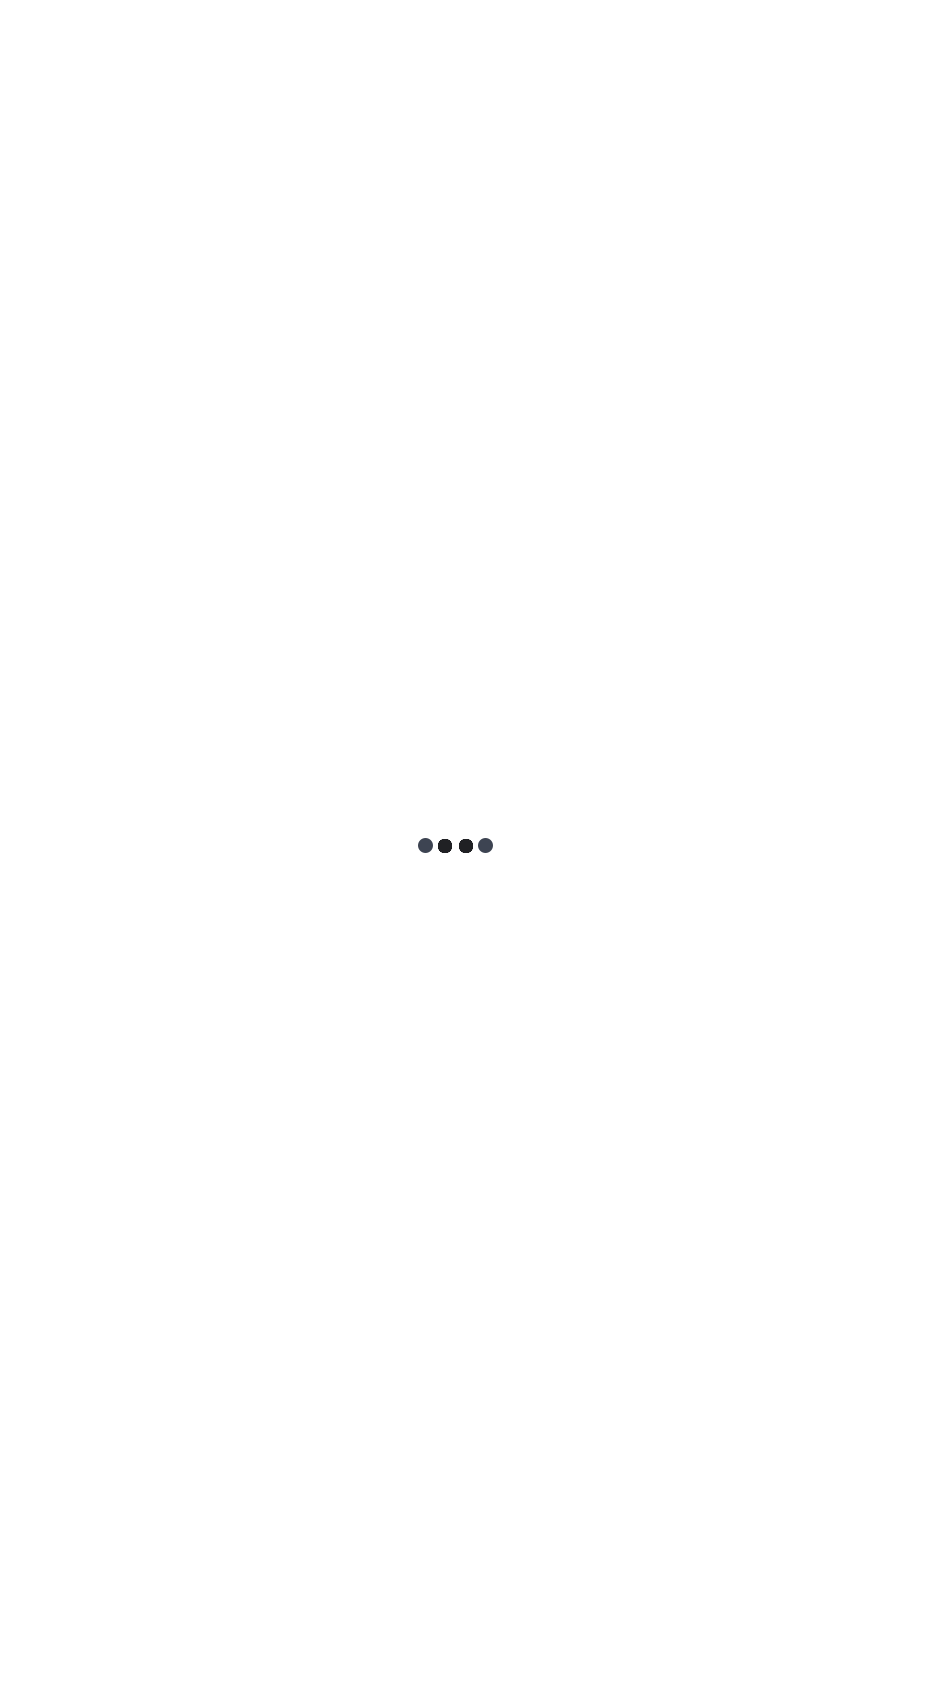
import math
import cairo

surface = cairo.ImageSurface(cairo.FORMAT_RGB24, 936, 1690)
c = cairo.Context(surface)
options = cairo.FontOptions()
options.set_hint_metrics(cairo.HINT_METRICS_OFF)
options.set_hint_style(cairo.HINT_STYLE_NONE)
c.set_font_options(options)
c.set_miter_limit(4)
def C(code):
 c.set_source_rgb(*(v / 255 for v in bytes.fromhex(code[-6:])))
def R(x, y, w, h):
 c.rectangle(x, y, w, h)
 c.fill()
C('ffffff')
c.paint()
gradient = cairo.RadialGradient(466,846,0,466,846,7.5)
gradient.add_color_stop_rgba(.95,0.125,0.129,0.141,1)
gradient.add_color_stop_rgba(1,1,1,1,1)
c.set_source(gradient)
R(459,839,14,14)
gradient = cairo.RadialGradient(445,846,0,445,846,7.5)
gradient.add_color_stop_rgba(.95,0.125,0.129,0.141,1)
gradient.add_color_stop_rgba(1,1,1,1,1)
c.set_source(gradient)
R(438,839,14,14)
C('3d4452')
c.arc(425.5,845.5,7.5,0,2 * math.pi)
c.fill()
c.arc(485.5,845.5,7.5,0,2 * math.pi)
c.fill()
surface.write_to_png('o.png')
